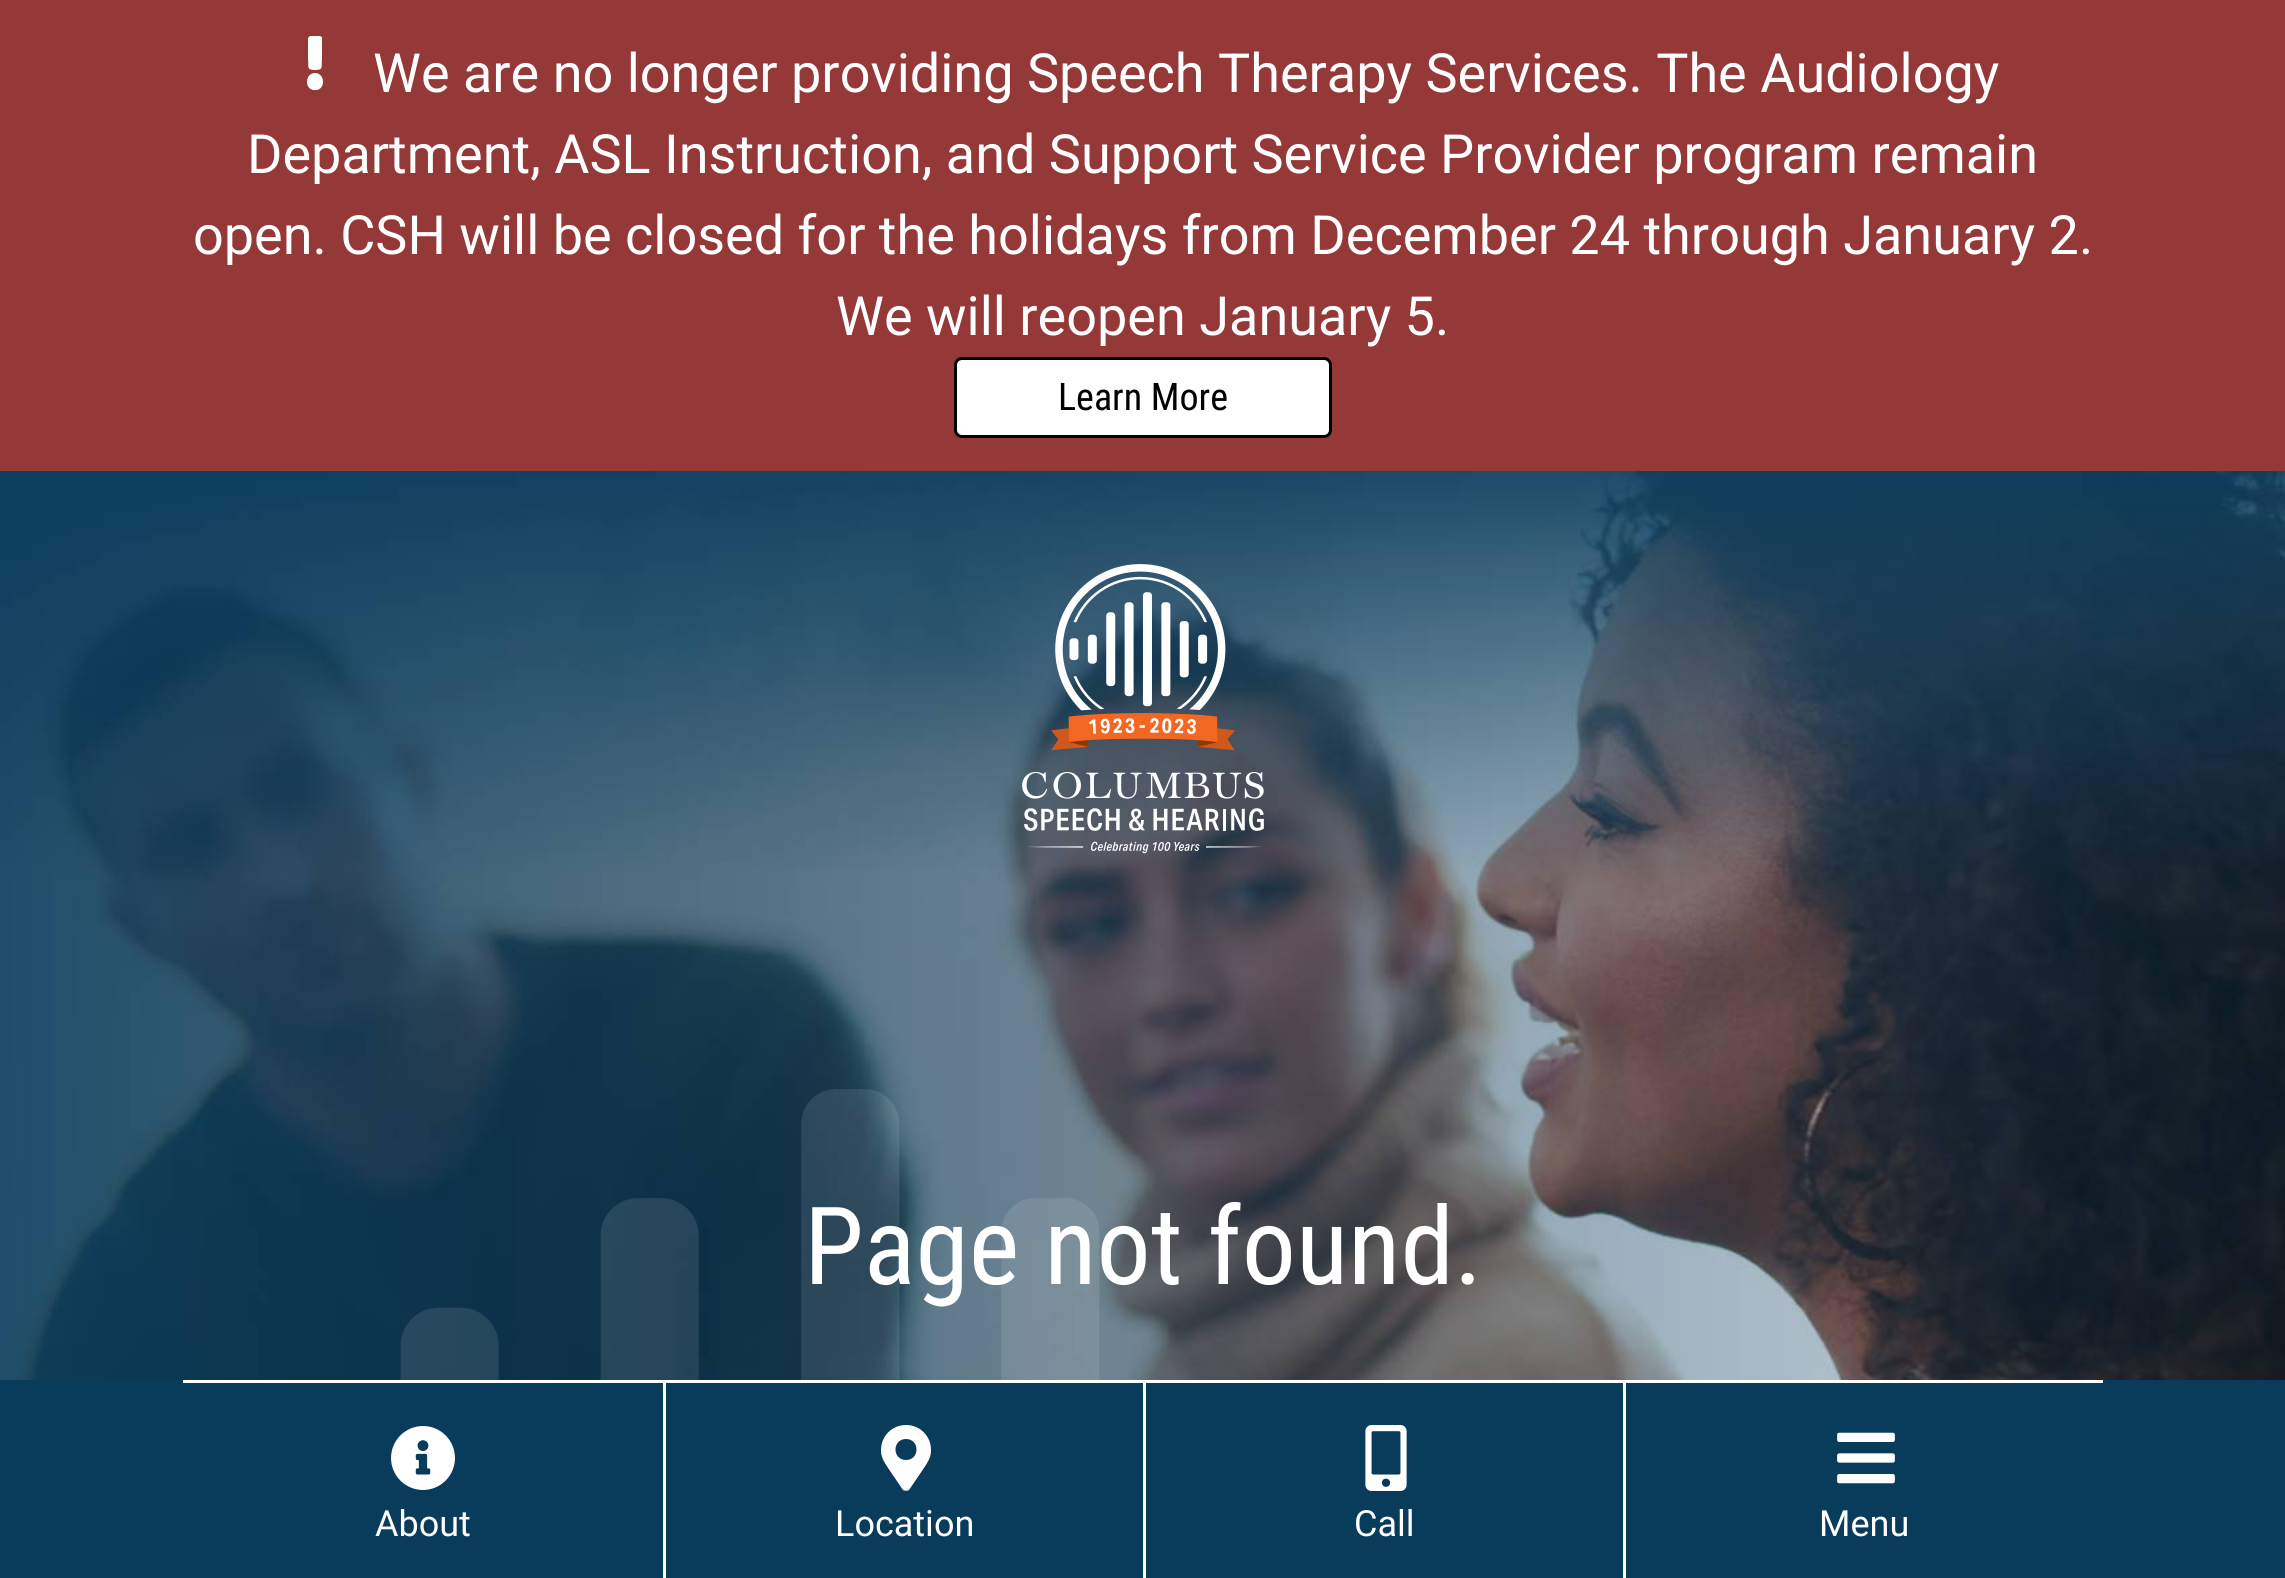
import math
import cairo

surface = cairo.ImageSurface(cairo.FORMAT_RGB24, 2285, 1578)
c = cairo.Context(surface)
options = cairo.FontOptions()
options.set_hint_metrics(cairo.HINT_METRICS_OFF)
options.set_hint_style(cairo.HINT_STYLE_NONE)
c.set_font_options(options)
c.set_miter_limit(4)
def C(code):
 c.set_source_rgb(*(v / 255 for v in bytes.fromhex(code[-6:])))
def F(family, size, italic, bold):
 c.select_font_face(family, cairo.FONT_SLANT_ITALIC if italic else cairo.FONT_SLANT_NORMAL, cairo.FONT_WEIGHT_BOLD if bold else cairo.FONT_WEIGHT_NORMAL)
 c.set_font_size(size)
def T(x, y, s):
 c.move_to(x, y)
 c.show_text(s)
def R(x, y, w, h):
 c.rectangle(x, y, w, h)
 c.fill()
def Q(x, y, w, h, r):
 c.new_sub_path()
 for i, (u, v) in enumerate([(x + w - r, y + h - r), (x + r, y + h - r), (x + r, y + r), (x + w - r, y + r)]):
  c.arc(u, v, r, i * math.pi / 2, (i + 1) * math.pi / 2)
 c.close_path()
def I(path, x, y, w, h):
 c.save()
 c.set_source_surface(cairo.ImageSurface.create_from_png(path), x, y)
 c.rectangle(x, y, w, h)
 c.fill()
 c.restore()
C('ffffff')
c.paint()
C('943838')
R(0,0,2285,471)
c.save()
c.rectangle(288,36,54,54)
c.clip()
C('ffffff')
c.new_path()
c.move_to(323,82)
c.curve_to(323,93,307,93,307,82)
c.curve_to(307,70,323,70,323,82)
c.close_path()
c.move_to(308,39)
c.line_to(308,58)
c.curve_to(309,67,306,70,315,70)
c.curve_to(324,70,321,67,322,58)
c.line_to(322,39)
c.curve_to(323,35,317,36,315,36)
c.curve_to(313,36,308,35,308,39)
c.close_path()
c.fill()
c.restore()
F('Roboto',54,0,0)
C('ffffff')
T(373,92,'We are no longer providing Speech Therapy Services. The Audiology')
T(247,173,'Department, ASL Instruction, and Support Service Provider program remain')
T(193,254,'open. CSH will be closed for the holidays from December 24 through January 2.')
T(836,335,'We will reopen January 5.')
Q(955.5,358.5,375,78,6.5)
c.fill_preserve()
C('000000')
c.set_line_width(3)
c.stroke()
F('Roboto Condensed',38,0,0)
T(1058,410,'Learn More')
I('2.png',0,471,2285,909)
I('1.png',1022,564,242,290)
I('3.png',400,1089,700,291)
F('Roboto Condensed',108,0,0)
C('ffffff')
T(804,1284,'Page not found.')
C('093b5b')
R(0,1380,2285,198)
C('ffffff')
R(183,1380,1920,3)
I('4.png',391,1426,64,64)
F('Roboto',36,0,0)
T(375,1536,'About')
R(663,1380,3,198)
c.new_path()
c.move_to(903,1490)
c.curve_to(885,1463,881,1460,881,1450)
c.curve_to(881,1436,892,1425,906,1425)
c.curve_to(920,1425,931,1436,931,1450)
c.curve_to(931,1460,927,1463,909,1490)
c.curve_to(907,1491,905,1491,903,1490)
c.close_path()
c.move_to(906,1460)
c.curve_to(920,1460,920,1439,906,1439)
c.curve_to(892,1439,892,1460,906,1460)
c.close_path()
c.fill()
T(835,1536,'Location')
R(1143,1380,3,198)
I('5.png',1365,1425,42,66)
T(1354,1536,'Call')
R(1623,1380,3,198)
I('6.png',1837,1432,58,52)
T(1819,1536,'Menu')
surface.write_to_png('o.png')
